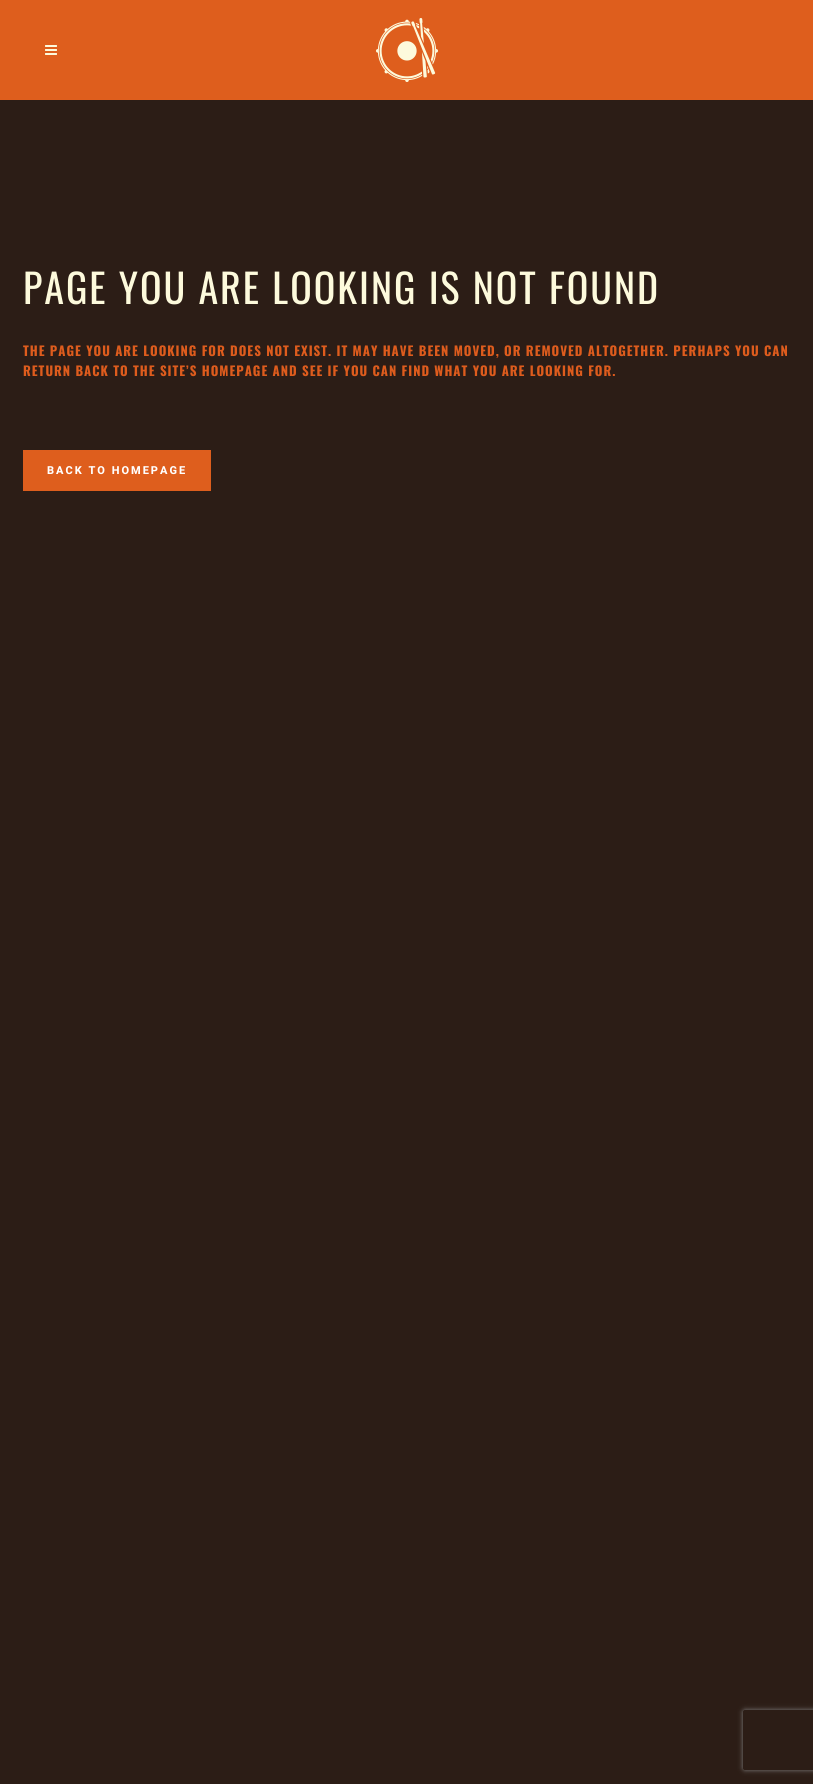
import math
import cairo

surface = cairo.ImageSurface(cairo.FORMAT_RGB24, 813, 1784)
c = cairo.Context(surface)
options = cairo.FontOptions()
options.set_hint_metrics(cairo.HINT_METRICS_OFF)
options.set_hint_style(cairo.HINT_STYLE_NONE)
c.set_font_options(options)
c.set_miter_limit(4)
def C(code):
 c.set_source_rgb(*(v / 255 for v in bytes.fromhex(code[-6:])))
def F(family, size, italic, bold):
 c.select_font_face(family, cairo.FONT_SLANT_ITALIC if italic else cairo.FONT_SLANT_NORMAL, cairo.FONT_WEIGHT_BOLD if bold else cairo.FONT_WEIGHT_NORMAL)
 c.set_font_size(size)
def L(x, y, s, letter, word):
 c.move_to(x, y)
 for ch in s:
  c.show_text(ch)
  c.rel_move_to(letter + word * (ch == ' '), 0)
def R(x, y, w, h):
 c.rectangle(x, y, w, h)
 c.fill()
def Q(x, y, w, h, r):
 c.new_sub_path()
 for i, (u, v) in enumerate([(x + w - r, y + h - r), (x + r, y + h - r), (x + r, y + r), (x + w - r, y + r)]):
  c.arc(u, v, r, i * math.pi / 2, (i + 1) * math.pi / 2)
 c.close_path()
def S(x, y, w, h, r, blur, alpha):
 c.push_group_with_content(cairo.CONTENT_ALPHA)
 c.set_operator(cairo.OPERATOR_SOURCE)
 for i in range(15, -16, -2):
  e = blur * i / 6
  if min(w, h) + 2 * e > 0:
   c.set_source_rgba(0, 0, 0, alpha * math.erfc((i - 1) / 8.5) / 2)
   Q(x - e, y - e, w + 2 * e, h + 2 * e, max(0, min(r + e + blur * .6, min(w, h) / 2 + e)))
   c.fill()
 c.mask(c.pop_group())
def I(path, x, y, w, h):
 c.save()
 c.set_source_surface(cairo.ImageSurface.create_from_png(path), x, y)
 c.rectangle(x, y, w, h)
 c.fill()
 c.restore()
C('2c1d16')
c.paint()
C('de5e1d')
R(0,0,813,100)
I('1.png',45,45,12,10)
I('2.png',376,18,62,64)
F('Oswald',40,0,0)
C('fdfadc')
L(23,304,'PAGE YOU ARE LOOKING IS NOT FOUND',2,0)
F('Oswald',13,0,1)
C('de5c1d')
L(23,356,'THE PAGE YOU ARE LOOKING FOR DOES NOT EXIST. IT MAY HAVE BEEN MOVED, OR REMOVED ALTOGETHER. PERHAPS YOU CAN',1,0)
L(23,376,'RETURN BACK TO THE SITE’S HOMEPAGE AND SEE IF YOU CAN FIND WHAT YOU ARE LOOKING FOR.',1,0)
C('de5e1d')
R(23,450,188,41)
F('Roboto ExtraBold',11,0,0)
C('ffffff')
L(47,474,'BACK TO HOMEPAGE',2,0)
c.save()
c.set_fill_rule(cairo.FILL_RULE_EVEN_ODD)
c.new_path()
c.move_to(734,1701)
c.line_to(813,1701)
c.line_to(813,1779)
c.line_to(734,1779)
c.close_path()
c.move_to(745,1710)
c.line_to(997,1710)
c.curve_to(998,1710,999,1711,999,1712)
c.line_to(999,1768)
c.curve_to(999,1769,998,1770,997,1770)
c.line_to(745,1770)
c.curve_to(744,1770,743,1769,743,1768)
c.line_to(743,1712)
c.curve_to(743,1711,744,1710,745,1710)
c.close_path()
c.clip()
C('808080')
S(743,1710,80,60,2,2.5,1)
c.restore()
surface.write_to_png('o.png')
